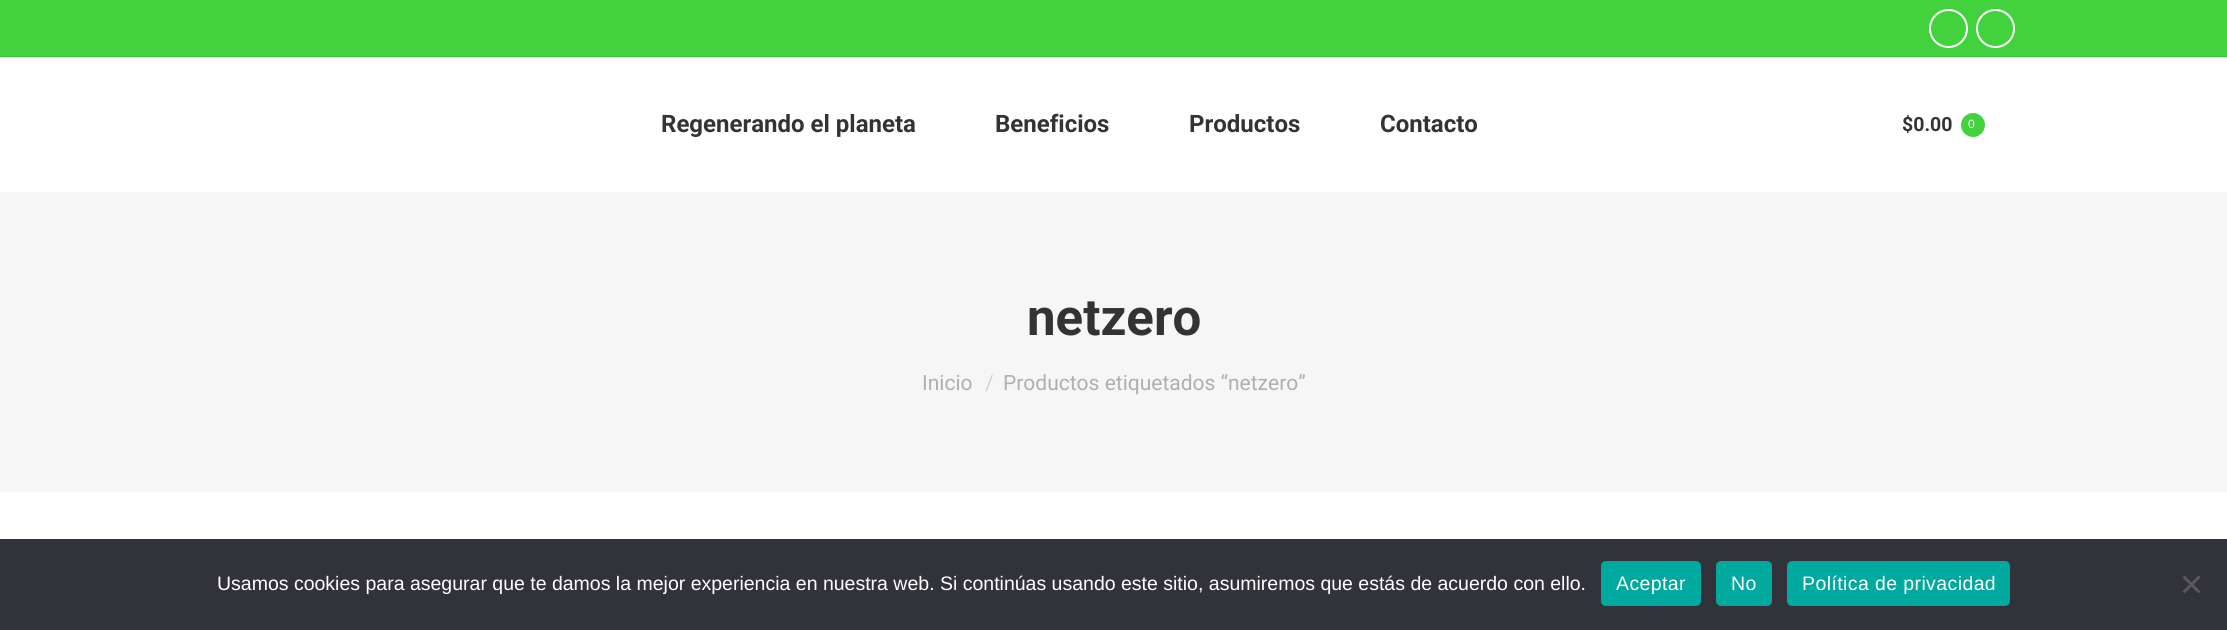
import math
import cairo

surface = cairo.ImageSurface(cairo.FORMAT_RGB24, 2227, 630)
c = cairo.Context(surface)
options = cairo.FontOptions()
options.set_hint_metrics(cairo.HINT_METRICS_OFF)
options.set_hint_style(cairo.HINT_STYLE_NONE)
c.set_font_options(options)
c.set_miter_limit(4)
def C(code):
 c.set_source_rgb(*(v / 255 for v in bytes.fromhex(code[-6:])))
def F(family, size, italic, bold):
 c.select_font_face(family, cairo.FONT_SLANT_ITALIC if italic else cairo.FONT_SLANT_NORMAL, cairo.FONT_WEIGHT_BOLD if bold else cairo.FONT_WEIGHT_NORMAL)
 c.set_font_size(size)
def T(x, y, s):
 c.move_to(x, y)
 c.show_text(s)
def L(x, y, s, letter, word):
 c.move_to(x, y)
 for ch in s:
  c.show_text(ch)
  c.rel_move_to(letter + word * (ch == ' '), 0)
def R(x, y, w, h):
 c.rectangle(x, y, w, h)
 c.fill()
def Q(x, y, w, h, r):
 c.new_sub_path()
 for i, (u, v) in enumerate([(x + w - r, y + h - r), (x + r, y + h - r), (x + r, y + r), (x + w - r, y + r)]):
  c.arc(u, v, r, i * math.pi / 2, (i + 1) * math.pi / 2)
 c.close_path()
C('ffffff')
c.paint()
C('e9e9e9')
R(0,57,2227,1)
C('42d23e')
R(0,0,2227,56)
C('40c13d')
R(0,56,2227,1)
c.arc(1948.5,28.5,18.5,0,2 * math.pi)
C('ffffff')
c.stroke()
c.arc(1995.5,28.5,18.5,0,2 * math.pi)
c.stroke()
F('Roboto',24,0,1)
C('333333')
T(661,132,'Regenerando el planeta')
T(995,132,'Beneficios')
T(1189,132,'Productos')
T(1380,132,'Contacto')
F('Roboto',19.5,0,1)
T(1902,131,'$0.00')
C('42d23e')
c.new_path()
c.arc(1973,125,12,0,2 * math.pi)
c.fill()
F('Liberation Sans',12,0,0)
C('ffffff')
T(1968,128,'0')
C('f6f6f6')
R(0,192,2227,300)
F('Roboto',51,0,1)
C('333333')
T(1027,335,'netzero')
F('Roboto',21,0,0)
C('adafb3')
T(922,390,'Inicio')
C('d2d3d5')
T(985,390,'/')
C('adafb3')
T(1003,390,'Productos etiquetados “netzero”')
C('32323a')
R(0,539,2227,91)
F('Liberation Sans',19.5,0,0)
C('ffffff')
T(217,590,'Usamos cookies para asegurar que te damos la mejor experiencia en nuestra web. Si continúas usando este sitio, asumiremos que estás de acuerdo con ello.')
C('00a99d')
Q(1601,561,100,45,5)
c.fill()
C('ffffff')
L(1616,590,'Aceptar',.4,0)
C('00a99d')
Q(1716,561,56,45,5)
c.fill()
C('ffffff')
L(1731,590,'No',.4,0)
C('00a99d')
Q(1787,561,223,45,5)
c.fill()
C('ffffff')
L(1802,590,'Política de privacidad',.4,0)
C('59595d')
c.new_path()
c.move_to(2198.5,575.5)
c.line_to(2200.5,577.5)
c.line_to(2184.5,593.5)
c.line_to(2182.5,591.5)
c.close_path()
c.fill()
c.new_path()
c.move_to(2182.5,577.5)
c.line_to(2184.5,575.5)
c.line_to(2200.5,591.5)
c.line_to(2198.5,593.5)
c.close_path()
c.fill()
surface.write_to_png('o.png')
